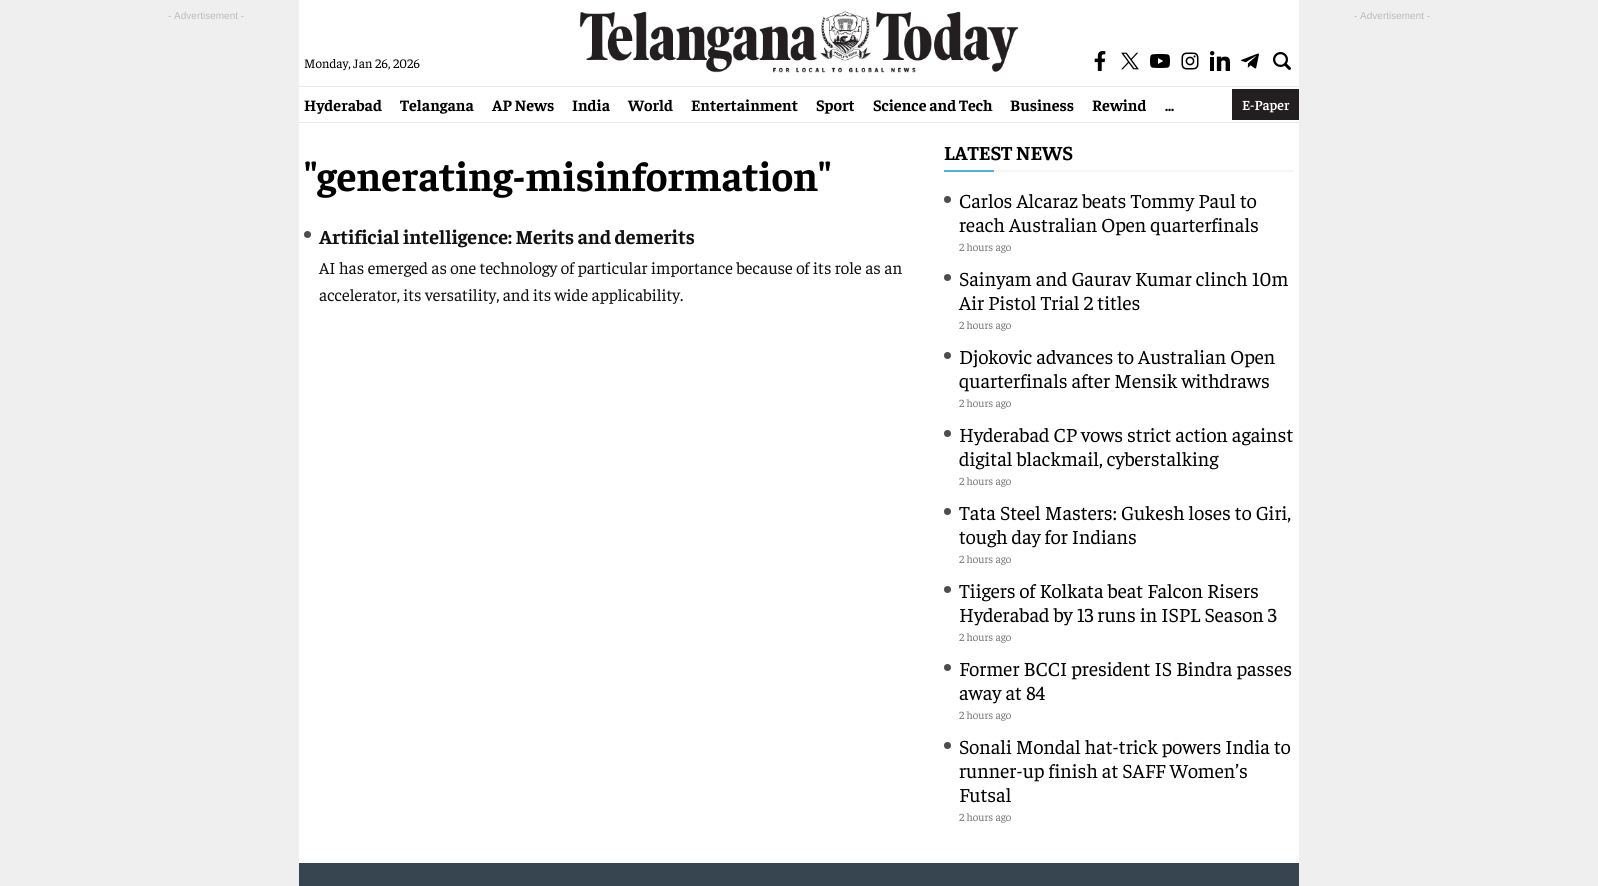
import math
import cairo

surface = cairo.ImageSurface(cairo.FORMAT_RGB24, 1598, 886)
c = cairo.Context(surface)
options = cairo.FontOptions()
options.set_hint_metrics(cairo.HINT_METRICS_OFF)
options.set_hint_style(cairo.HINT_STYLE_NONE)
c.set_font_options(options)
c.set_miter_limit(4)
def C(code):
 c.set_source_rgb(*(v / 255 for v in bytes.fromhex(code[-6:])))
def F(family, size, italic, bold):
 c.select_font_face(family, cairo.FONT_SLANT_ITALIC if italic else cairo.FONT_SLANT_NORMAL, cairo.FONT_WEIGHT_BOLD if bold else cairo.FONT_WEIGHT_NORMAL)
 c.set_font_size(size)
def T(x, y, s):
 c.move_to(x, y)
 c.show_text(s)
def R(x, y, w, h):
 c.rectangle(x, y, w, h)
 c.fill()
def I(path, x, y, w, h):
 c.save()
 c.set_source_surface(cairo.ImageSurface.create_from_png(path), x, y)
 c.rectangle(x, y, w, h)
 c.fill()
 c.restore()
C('efefef')
c.paint()
F('Liberation Sans',10,0,0)
C('bbbbbb')
T(168,19,'- Advertisement -')
T(1354,19,'- Advertisement -')
C('ffffff')
R(299,0,1000,863)
F('Faustina',13,0,0)
C('000000')
T(304,68,'Monday, Jan 26, 2026')
I('1.png',579,11,440,62)
I('2.png',1094,51,12,20)
I('3.png',1121,52,18,18)
I('4.png',1150,54,20,14)
I('5.png',1181,52,18,18)
I('6.png',1210,51,20,20)
I('7.png',1241,53,18,16)
I('8.png',1273,52,18,18)
C('e8e8e8')
R(299,86,1000,1)
R(299,122,1000,1)
F('Faustina',16,0,1)
C('000000')
T(304,111,'Hyderabad')
T(400,111,'Telangana')
T(492,111,'AP News')
T(572,111,'India')
T(628,111,'World')
T(691,111,'Entertainment')
T(816,111,'Sport')
T(873,111,'Science and Tech')
T(1010,111,'Business')
T(1092,111,'Rewind')
T(1165,111,'...')
C('231f20')
R(1232,89,67,31)
F('Faustina SemiBold',14,0,0)
C('ffffff')
T(1242,110,'E-Paper')
F('Faustina',41,0,1)
C('000000')
T(304,191,'"generating-misinformation"')
C('4d4d4d')
c.new_path()
c.arc(307.5,234.5,3.5,0,2 * math.pi)
c.fill()
F('Faustina',20,0,1)
C('111111')
T(319,244,'Artificial intelligence: Merits and demerits')
F('Faustina',17,0,0)
T(319,274,'AI has emerged as one technology of particular importance because of its role as an')
T(319,301,'accelerator, its versatility, and its wide applicability.')
F('Faustina',20,0,1)
C('000000')
T(944,160,'LATEST NEWS')
C('4db2ec')
R(944,170,50,2)
C('f5f5f5')
R(994,170,300,2)
C('4d4d4d')
c.new_path()
c.arc(947.5,199.5,3.5,0,2 * math.pi)
c.fill()
F('Faustina',20,0,0)
C('000000')
T(959,208,'Carlos Alcaraz beats Tommy Paul to')
T(959,232,'reach Australian Open quarterfinals')
F('Faustina',11,0,0)
C('767676')
T(959,251,'2 hours ago')
C('4d4d4d')
c.new_path()
c.arc(947.5,277.5,3.5,0,2 * math.pi)
c.fill()
F('Faustina',20,0,0)
C('000000')
T(959,286,'Sainyam and Gaurav Kumar clinch 10m')
T(959,310,'Air Pistol Trial 2 titles')
F('Faustina',11,0,0)
C('767676')
T(959,329,'2 hours ago')
C('4d4d4d')
c.new_path()
c.arc(947.5,355.5,3.5,0,2 * math.pi)
c.fill()
F('Faustina',20,0,0)
C('000000')
T(959,364,'Djokovic advances to Australian Open')
T(959,388,'quarterfinals after Mensik withdraws')
F('Faustina',11,0,0)
C('767676')
T(959,407,'2 hours ago')
C('4d4d4d')
c.new_path()
c.arc(947.5,433.5,3.5,0,2 * math.pi)
c.fill()
F('Faustina',20,0,0)
C('000000')
T(959,442,'Hyderabad CP vows strict action against')
T(959,466,'digital blackmail, cyberstalking')
F('Faustina',11,0,0)
C('767676')
T(959,485,'2 hours ago')
C('4d4d4d')
c.new_path()
c.arc(947.5,511.5,3.5,0,2 * math.pi)
c.fill()
F('Faustina',20,0,0)
C('000000')
T(959,520,'Tata Steel Masters: Gukesh loses to Giri,')
T(959,544,'tough day for Indians')
F('Faustina',11,0,0)
C('767676')
T(959,563,'2 hours ago')
C('4d4d4d')
c.new_path()
c.arc(947.5,589.5,3.5,0,2 * math.pi)
c.fill()
F('Faustina',20,0,0)
C('000000')
T(959,598,'Tiigers of Kolkata beat Falcon Risers')
T(959,622,'Hyderabad by 13 runs in ISPL Season 3')
F('Faustina',11,0,0)
C('767676')
T(959,641,'2 hours ago')
C('4d4d4d')
c.new_path()
c.arc(947.5,667.5,3.5,0,2 * math.pi)
c.fill()
F('Faustina',20,0,0)
C('000000')
T(959,676,'Former BCCI president IS Bindra passes')
T(959,700,'away at 84')
F('Faustina',11,0,0)
C('767676')
T(959,719,'2 hours ago')
C('4d4d4d')
c.new_path()
c.arc(947.5,745.5,3.5,0,2 * math.pi)
c.fill()
F('Faustina',20,0,0)
C('000000')
T(959,754,'Sonali Mondal hat-trick powers India to')
T(959,778,'runner-up finish at SAFF Women’s')
T(959,802,'Futsal')
F('Faustina',11,0,0)
C('767676')
T(959,821,'2 hours ago')
C('36454f')
R(299,863,1000,23)
surface.write_to_png('o.png')
